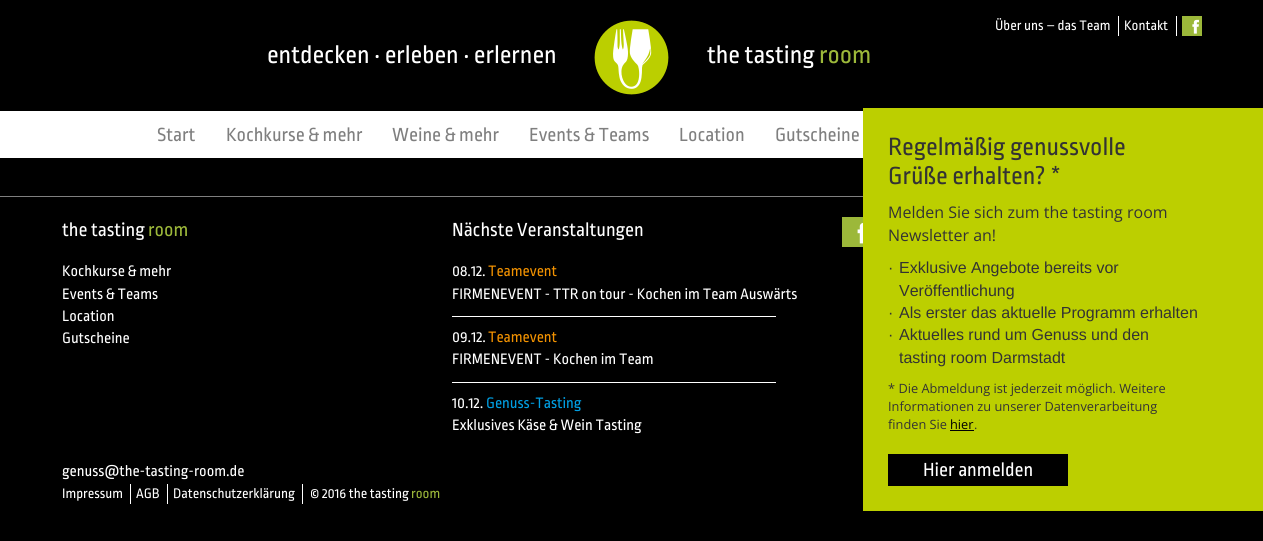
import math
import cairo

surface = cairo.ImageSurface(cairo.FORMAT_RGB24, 1263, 541)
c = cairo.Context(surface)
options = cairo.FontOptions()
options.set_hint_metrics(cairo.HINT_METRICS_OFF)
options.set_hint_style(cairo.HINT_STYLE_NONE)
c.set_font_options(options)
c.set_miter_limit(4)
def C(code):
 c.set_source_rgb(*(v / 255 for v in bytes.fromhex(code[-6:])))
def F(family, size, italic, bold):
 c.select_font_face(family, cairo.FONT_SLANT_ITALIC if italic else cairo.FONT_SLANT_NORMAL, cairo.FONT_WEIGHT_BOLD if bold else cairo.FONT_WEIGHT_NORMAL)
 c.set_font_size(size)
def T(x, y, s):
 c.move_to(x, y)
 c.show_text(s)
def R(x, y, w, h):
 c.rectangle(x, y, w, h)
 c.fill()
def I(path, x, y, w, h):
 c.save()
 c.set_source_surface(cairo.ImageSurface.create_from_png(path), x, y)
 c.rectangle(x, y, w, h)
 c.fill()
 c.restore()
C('000000')
c.paint()
F('Ropa Sans',26,0,0)
C('ffffff')
T(267,63,'entdecken · erleben · erlernen')
I('1.png',594,20,75,75)
T(707,63,'the tasting')
C('9cb83a')
T(819,63,'room')
C('ffffff')
R(1118,16,1,20)
F('Ropa Sans',14.5,0,0)
T(995,30,'Über uns – das Team')
R(1176,16,1,20)
T(1124,30,'Kontakt')
C('9cb83a')
R(1182,16,20,20)
I('2.png',1192,19,7,15)
C('ffffff')
R(0,111,863,47)
F('Ropa Sans',20,0,0)
C('7f7f7f')
T(157,141,'Start')
T(226,141,'Kochkurse & mehr')
T(392,141,'Weine & mehr')
T(529,141,'Events & Teams')
T(679,141,'Location')
T(775,141,'Gutscheine')
C('ffffff')
T(62,236,'the tasting')
C('9cb83a')
T(148,236,'room')
F('Ropa Sans',16,0,0)
C('ffffff')
T(62,276,'Kochkurse & mehr')
T(62,299,'Events & Teams')
T(62,321,'Location')
T(62,343,'Gutscheine')
F('Ropa Sans',20,0,0)
T(452,236,'Nächste Veranstaltungen')
F('Ropa Sans',16,0,0)
T(452,276,'08.12.')
C('f39200')
T(488,276,'Teamevent')
C('ffffff')
T(452,299,'FIRMENEVENT - TTR on tour - Kochen im Team Auswärts')
R(452,316,324,1)
T(452,342,'09.12.')
C('f39200')
T(488,342,'Teamevent')
C('ffffff')
T(452,364,'FIRMENEVENT - Kochen im Team')
R(452,382,324,1)
T(452,408,'10.12.')
C('009fe3')
T(486,408,'Genuss-Tasting')
C('ffffff')
T(452,430,'Exklusives Käse & Wein Tasting')
C('9cb83a')
R(842,217,21,30)
I('3.png',857,222,6,22)
C('ffffff')
T(62,476,'genuss@the-tasting-room.de')
R(130,484,1,20)
F('Ropa Sans',14.5,0,0)
T(62,498,'Impressum')
R(167,484,1,20)
T(136,498,'AGB')
R(302,484,1,20)
T(173,498,'Datenschutzerklärung')
T(310,498,'© 2016 the tasting')
C('9cb83a')
T(411,498,'room')
C('7f7f7f')
R(0,196,863,1)
C('bccf00')
R(863,108,400,403)
F('Ropa Sans',26,0,0)
C('333333')
T(888,155,'Regelmäßig genussvolle')
T(888,184,'Grüße erhalten? *')
F('Open Sans',16,0,0)
T(888,218,'Melden Sie sich zum the tasting room')
T(888,241,'Newsletter an!')
F('Liberation Sans',16,0,0)
T(888,273,'·')
T(899,273,'Exklusive Angebote bereits vor')
T(899,296,'Veröffentlichung')
T(888,318,'·')
T(899,318,'Als erster das aktuelle Programm erhalten')
T(888,340,'·')
T(899,340,'Aktuelles rund um Genuss und den')
T(899,363,'tasting room Darmstadt')
F('Open Sans',12.8,0,0)
T(888,393,'* Die Abmeldung ist jederzeit möglich. Weitere')
T(888,411,'Informationen zu unserer Datenverarbeitung')
T(888,429,'finden Sie')
C('000000')
T(950,429,'hier')
R(950,430,24,1)
C('333333')
T(974,429,'.')
C('000000')
R(888,454,180,32)
F('Ropa Sans',20,0,0)
C('ffffff')
T(923,476,'Hier anmelden')
surface.write_to_png('o.png')
